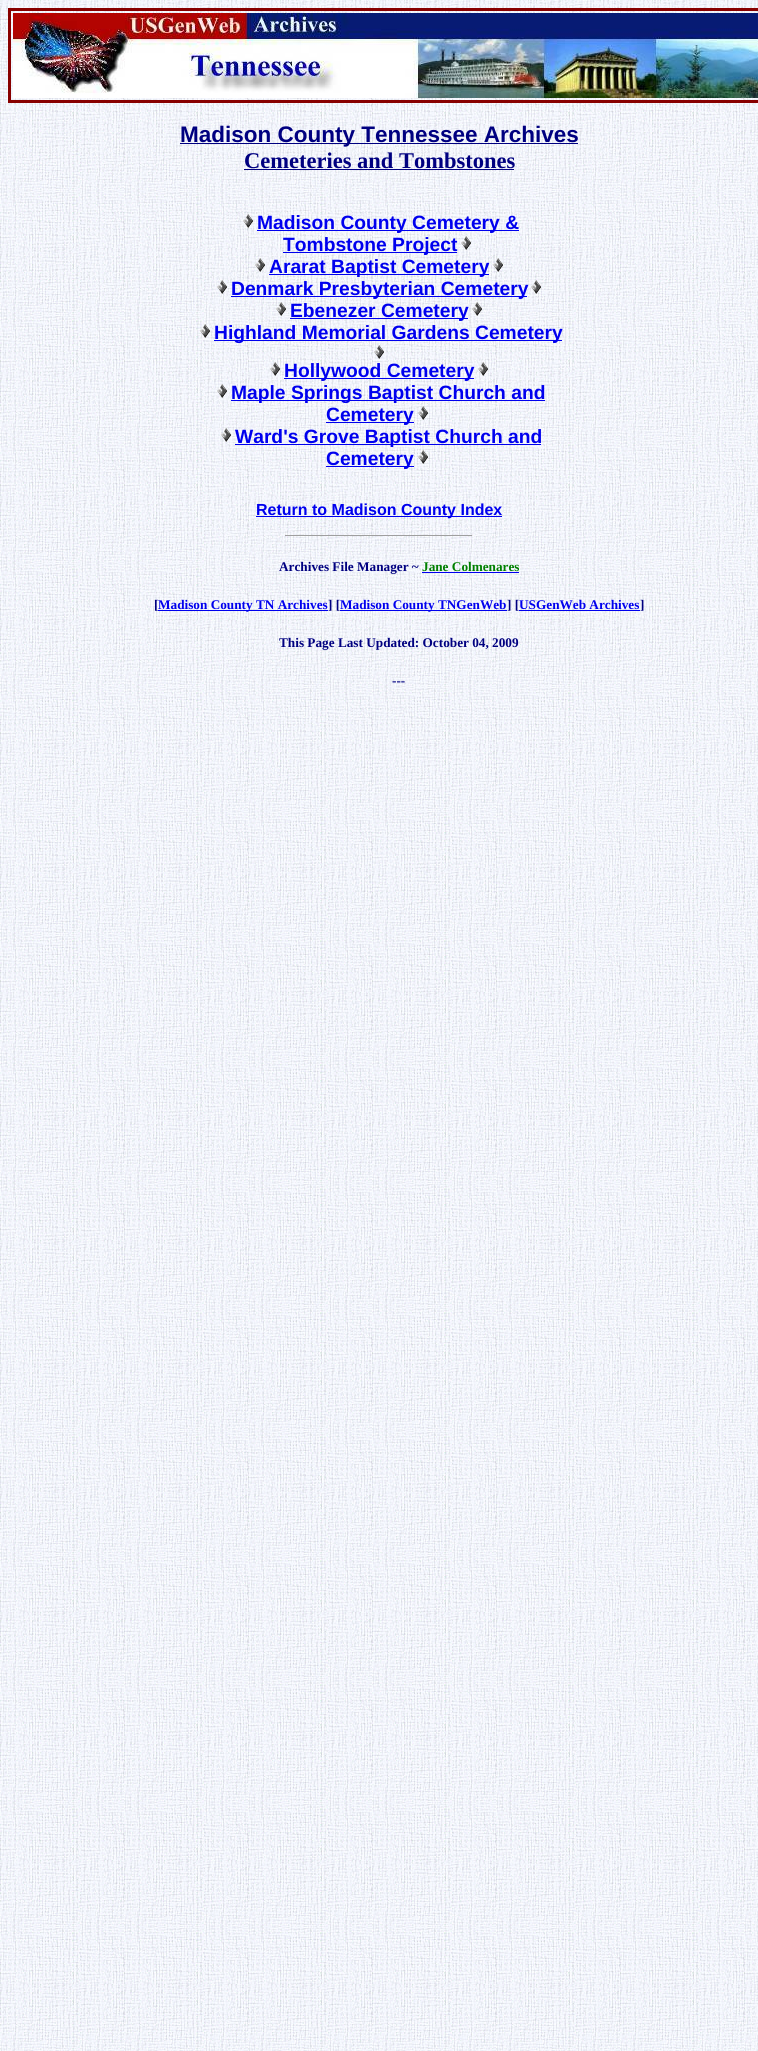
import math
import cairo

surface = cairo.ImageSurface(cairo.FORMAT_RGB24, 758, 2051)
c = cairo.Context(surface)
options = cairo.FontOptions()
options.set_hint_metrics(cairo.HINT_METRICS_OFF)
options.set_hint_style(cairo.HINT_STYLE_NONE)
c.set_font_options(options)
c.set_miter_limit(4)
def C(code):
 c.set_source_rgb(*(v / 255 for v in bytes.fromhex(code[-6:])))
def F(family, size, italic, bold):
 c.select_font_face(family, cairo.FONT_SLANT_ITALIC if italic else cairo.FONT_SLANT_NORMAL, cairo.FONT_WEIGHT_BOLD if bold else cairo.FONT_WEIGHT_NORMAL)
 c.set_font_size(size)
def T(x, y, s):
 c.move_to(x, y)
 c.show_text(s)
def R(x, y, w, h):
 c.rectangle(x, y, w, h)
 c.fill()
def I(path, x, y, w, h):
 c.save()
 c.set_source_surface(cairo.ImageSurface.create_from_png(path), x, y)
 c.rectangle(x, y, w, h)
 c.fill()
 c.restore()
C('ffffff')
c.paint()
I('1.png',0,0,758,2051)
c.rectangle(9,9,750,93)
C('880000')
c.stroke()
c.rectangle(10.5,10.5,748,90)
c.set_line_width(1)
c.stroke()
I('2.png',13,13,745,85)
C('000080')
R(180,143,398,1)
F('Liberation Sans',22.5,0,1)
T(180,142,'Madison County Tennessee Archives')
F('Liberation Serif',22.5,0,1)
T(244,168,'Cemeteries and Tombstones')
R(244,169,270,1)
I('3.png',243,214,10,14)
C('0000ee')
R(257,230,262,1)
F('Liberation Sans',19.25,0,1)
T(257,229,'Madison County Cemetery &')
R(283,252,174,1)
T(283,251,'Tombstone Project')
I('4.png',461,236,10,14)
I('5.png',255,258,10,14)
R(269,274,220,1)
T(269,273,'Ararat Baptist Cemetery')
I('6.png',493,258,10,14)
I('7.png',217,280,10,14)
R(231,296,296,1)
T(231,295,'Denmark Presbyterian Cemetery')
I('8.png',531,280,10,14)
I('9.png',276,302,10,14)
R(290,318,178,1)
T(290,317,'Ebenezer Cemetery')
I('10.png',472,302,10,14)
I('11.png',200,324,10,14)
R(214,340,348,1)
T(214,339,'Highland Memorial Gardens Cemetery')
I('12.png',374,345,10,14)
I('13.png',270,362,10,14)
R(284,378,190,1)
T(284,377,'Hollywood Cemetery')
I('14.png',478,362,10,14)
I('15.png',217,384,10,14)
R(231,400,314,1)
T(231,399,'Maple Springs Baptist Church and')
R(326,422,88,1)
T(326,421,'Cemetery')
I('16.png',418,406,10,14)
I('17.png',221,428,10,14)
R(235,444,306,1)
T(235,443,'Ward\'s Grove Baptist Church and')
R(326,466,88,1)
T(326,465,'Cemetery')
I('18.png',418,450,10,14)
R(256,516,246,1)
F('Liberation Sans',16,0,1)
T(256,515,'Return to Madison County Index')
C('9f9f9f')
R(285,535,188,1)
C('eeeeee')
R(472,535,1,1)
F('Liberation Serif',13.25,0,1)
C('000080')
T(279,571,'Archives File Manager ~')
C('008000')
T(422,571,'Jane Colmenares')
C('0000ee')
R(422,572,97,1)
C('000080')
T(154,609,'[')
C('0000ee')
R(158,610,170,1)
T(158,609,'Madison County TN Archives')
C('000080')
T(328,609,'] [')
C('0000ee')
R(340,610,167,1)
T(340,609,'Madison County TNGenWeb')
C('000080')
T(507,609,'] [')
C('0000ee')
R(519,610,121,1)
T(519,609,'USGenWeb Archives')
C('000080')
T(640,609,']')
T(279,647,'This Page Last Updated: October 04, 2009')
T(392,685,'---')
surface.write_to_png('o.png')
